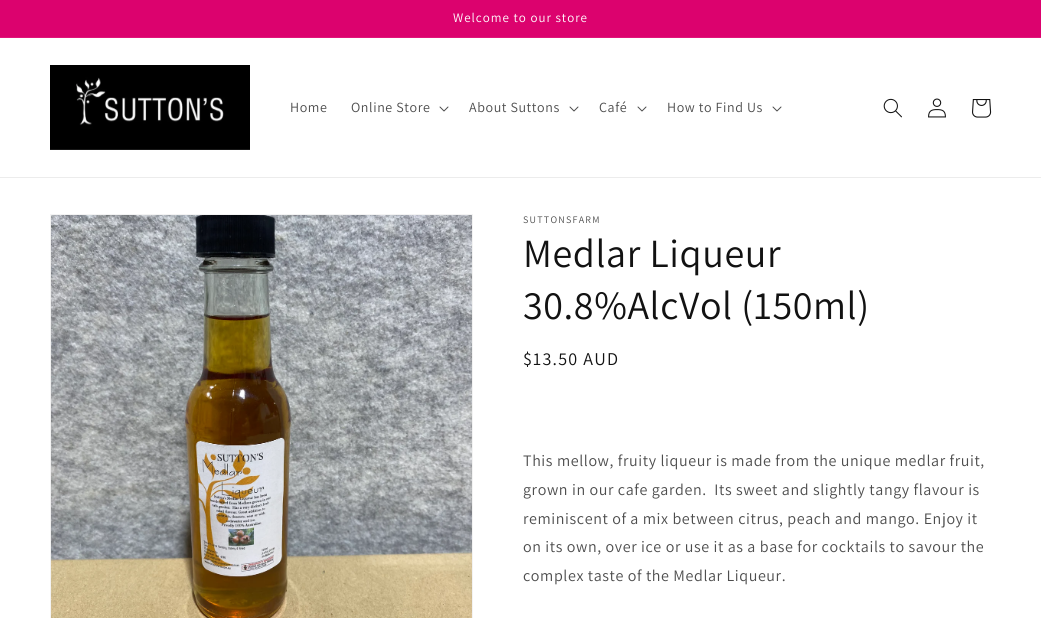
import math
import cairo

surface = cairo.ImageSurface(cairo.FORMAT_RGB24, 1041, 618)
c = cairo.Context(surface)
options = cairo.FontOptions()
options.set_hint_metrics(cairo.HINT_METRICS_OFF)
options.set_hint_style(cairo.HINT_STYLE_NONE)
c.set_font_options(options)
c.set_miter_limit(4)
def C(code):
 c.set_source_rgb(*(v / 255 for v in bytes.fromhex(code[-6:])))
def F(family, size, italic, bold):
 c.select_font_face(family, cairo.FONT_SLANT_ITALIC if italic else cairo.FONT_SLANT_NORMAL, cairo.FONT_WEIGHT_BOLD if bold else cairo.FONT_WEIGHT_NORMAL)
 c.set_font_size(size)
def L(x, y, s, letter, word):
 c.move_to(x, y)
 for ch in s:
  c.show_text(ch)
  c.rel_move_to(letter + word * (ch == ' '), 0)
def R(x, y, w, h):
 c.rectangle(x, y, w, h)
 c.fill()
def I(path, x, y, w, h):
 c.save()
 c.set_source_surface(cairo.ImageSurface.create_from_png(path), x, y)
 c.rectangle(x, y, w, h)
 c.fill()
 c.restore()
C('ffffff')
c.paint()
C('dc026e')
R(0,0,1041,37)
C('df167a')
R(0,37,1041,1)
F('Assistant',13,0,0)
C('ffffff')
L(453,22,'Welcome to our store',1,0)
C('ececec')
R(0,177,1041,1)
I('1.png',50,65,200,85)
F('Assistant',14,0,0)
C('4d4d4d')
L(290,112,'Home',.6,0)
L(351,112,'Online Store',.6,0)
I('2.png',439,106,10,6)
L(469,112,'About Suttons',.6,0)
I('2.png',569,106,10,6)
L(599,112,'Café',.6,0)
I('2.png',637,106,10,6)
L(667,112,'How to Find Us',.6,0)
I('2.png',772,106,10,6)
I('3.png',883,98,19,20)
I('4.png',928,98,18,20)
I('5.png',972,99,20,19)
c.rectangle(50.5,214.5,422,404)
C('f3f3f3')
c.set_line_width(1)
c.stroke()
I('6.png',51,215,421,403)
F('Assistant',10,0,0)
C('4d4d4d')
L(523,223,'SUTTONSFARM',1.25,0)
F('Assistant',40,0,0)
C('121212')
L(523,267,'Medlar Liqueur',.6,0)
L(523,319,'30.8%AlcVol (150ml)',.6,0)
F('Assistant',18,0,0)
L(523,365,'$13.50 AUD',1.25,0)
F('Assistant',16,0,0)
C('4d4d4d')
L(523,466,'This mellow, fruity liqueur is made from the unique medlar fruit,',.6,0)
L(523,495,'grown in our cafe garden.  Its sweet and slightly tangy flavour is',.6,0)
L(523,524,'reminiscent of a mix between citrus, peach and mango. Enjoy it',.6,0)
L(523,552,'on its own, over ice or use it as a base for cocktails to savour the',.6,0)
L(523,581,'complex taste of the Medlar Liqueur.',.6,0)
surface.write_to_png('o.png')
